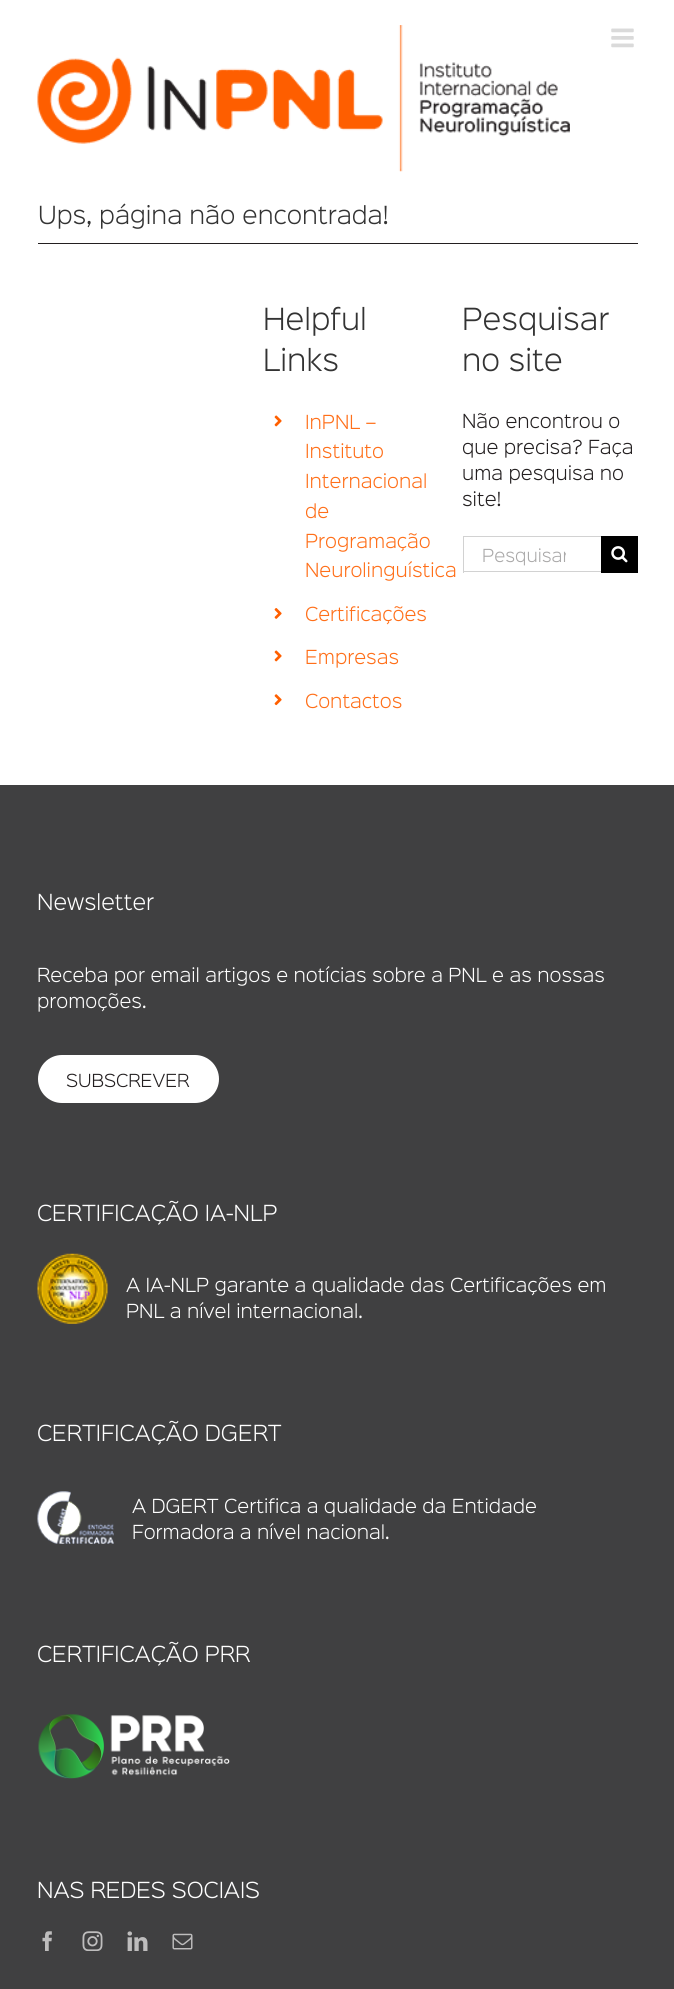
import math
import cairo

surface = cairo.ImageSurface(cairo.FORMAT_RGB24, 674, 1989)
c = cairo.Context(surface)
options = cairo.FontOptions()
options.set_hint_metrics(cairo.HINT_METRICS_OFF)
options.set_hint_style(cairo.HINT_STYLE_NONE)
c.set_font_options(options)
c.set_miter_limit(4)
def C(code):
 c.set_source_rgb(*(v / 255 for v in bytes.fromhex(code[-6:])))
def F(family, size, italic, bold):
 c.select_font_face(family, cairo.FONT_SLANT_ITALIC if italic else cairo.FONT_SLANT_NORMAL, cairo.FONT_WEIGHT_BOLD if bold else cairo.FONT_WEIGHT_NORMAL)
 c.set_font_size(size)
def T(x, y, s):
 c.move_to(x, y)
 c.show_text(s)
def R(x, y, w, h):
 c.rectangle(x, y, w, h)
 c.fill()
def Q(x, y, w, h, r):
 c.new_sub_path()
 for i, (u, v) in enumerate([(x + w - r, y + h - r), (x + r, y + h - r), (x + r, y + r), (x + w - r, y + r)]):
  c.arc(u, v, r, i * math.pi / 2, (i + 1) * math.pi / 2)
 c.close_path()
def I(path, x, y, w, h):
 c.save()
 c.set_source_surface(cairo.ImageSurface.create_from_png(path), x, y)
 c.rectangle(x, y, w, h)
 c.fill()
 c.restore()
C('ffffff')
c.paint()
I('1.png',37,25,533,147)
I('2.png',611,28,23,20)
C('231f20')
R(38,243,600,1)
F('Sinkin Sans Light',22.5,0,0)
C('333333')
T(38,224,'Ups, página não encontrada!')
F('Sinkin Sans Light',27.5,0,0)
T(263,330,'Helpful')
T(263,371,'Links')
I('3.png',274,415,8,12)
F('Sinkin Sans Light',17.5,0,0)
C('ff6f19')
T(305,429,'InPNL –')
T(305,458,'Instituto')
T(305,488,'Internacional')
T(305,518,'de')
T(305,548,'Programação')
T(305,577,'Neurolinguística')
I('4.png',274,608,8,11)
T(305,621,'Certificações')
I('3.png',274,650,8,12)
T(305,664,'Empresas')
I('5.png',274,694,8,12)
T(305,708,'Contactos')
F('Sinkin Sans Light',27.5,0,0)
C('333333')
T(462,330,'Pesquisar')
T(462,371,'no site')
F('Sinkin Sans Light',17.5,0,0)
C('231f20')
T(462,428,'Não encontrou o')
T(462,454,'que precisa? Faça')
T(462,480,'uma pesquisa no')
T(462,506,'site!')
C('d2d2d2')
R(463,536,138,1)
R(463,571,138,1)
R(463,536,1,37)
c.save()
c.rectangle(483,543,83,25)
c.clip()
F('Sinkin Sans Light',16.25,0,0)
C('aaa9a9')
T(482,562,'Pesquisar')
c.restore()
C('000000')
R(601,536,37,37)
I('6.png',611,546,17,17)
C('404041')
R(0,785,674,1204)
F('Sinkin Sans Light',20,0,0)
C('ffffff')
T(37,910,'Newsletter')
F('Sinkin Sans Light',17.5,0,0)
T(37,982,'Receba por email artigos e notícias sobre a PNL e as nossas')
T(37,1008,'promoções.')
Q(38,1055,181,48,24)
c.fill()
F('Sinkin Sans Light',16.25,0,0)
C('231f20')
T(66,1087,'SUBSCREVER')
F('Sinkin Sans Light',20,0,0)
C('ffffff')
T(37,1221,'CERTIFICAÇÃO IA-NLP')
I('7.png',37,1253,71,71)
F('Sinkin Sans Light',17.5,0,0)
T(126,1292,'A IA-NLP garante a qualidade das Certificações em')
T(126,1318,'PNL a nível internacional.')
F('Sinkin Sans Light',20,0,0)
T(37,1441,'CERTIFICAÇÃO DGERT')
I('8.png',37,1491,77,53)
F('Sinkin Sans Light',17.5,0,0)
T(132,1513,'A DGERT Certifica a qualidade da Entidade')
T(132,1539,'Formadora a nível nacional.')
F('Sinkin Sans Light',20,0,0)
T(37,1662,'CERTIFICAÇÃO PRR')
I('9.png',38,1714,192,65)
T(37,1898,'NAS REDES SOCIAIS')
I('10.png',42,1931,10,20)
I('11.png',82,1931,21,20)
I('12.png',127,1931,21,20)
I('13.png',172,1933,21,17)
surface.write_to_png('o.png')
